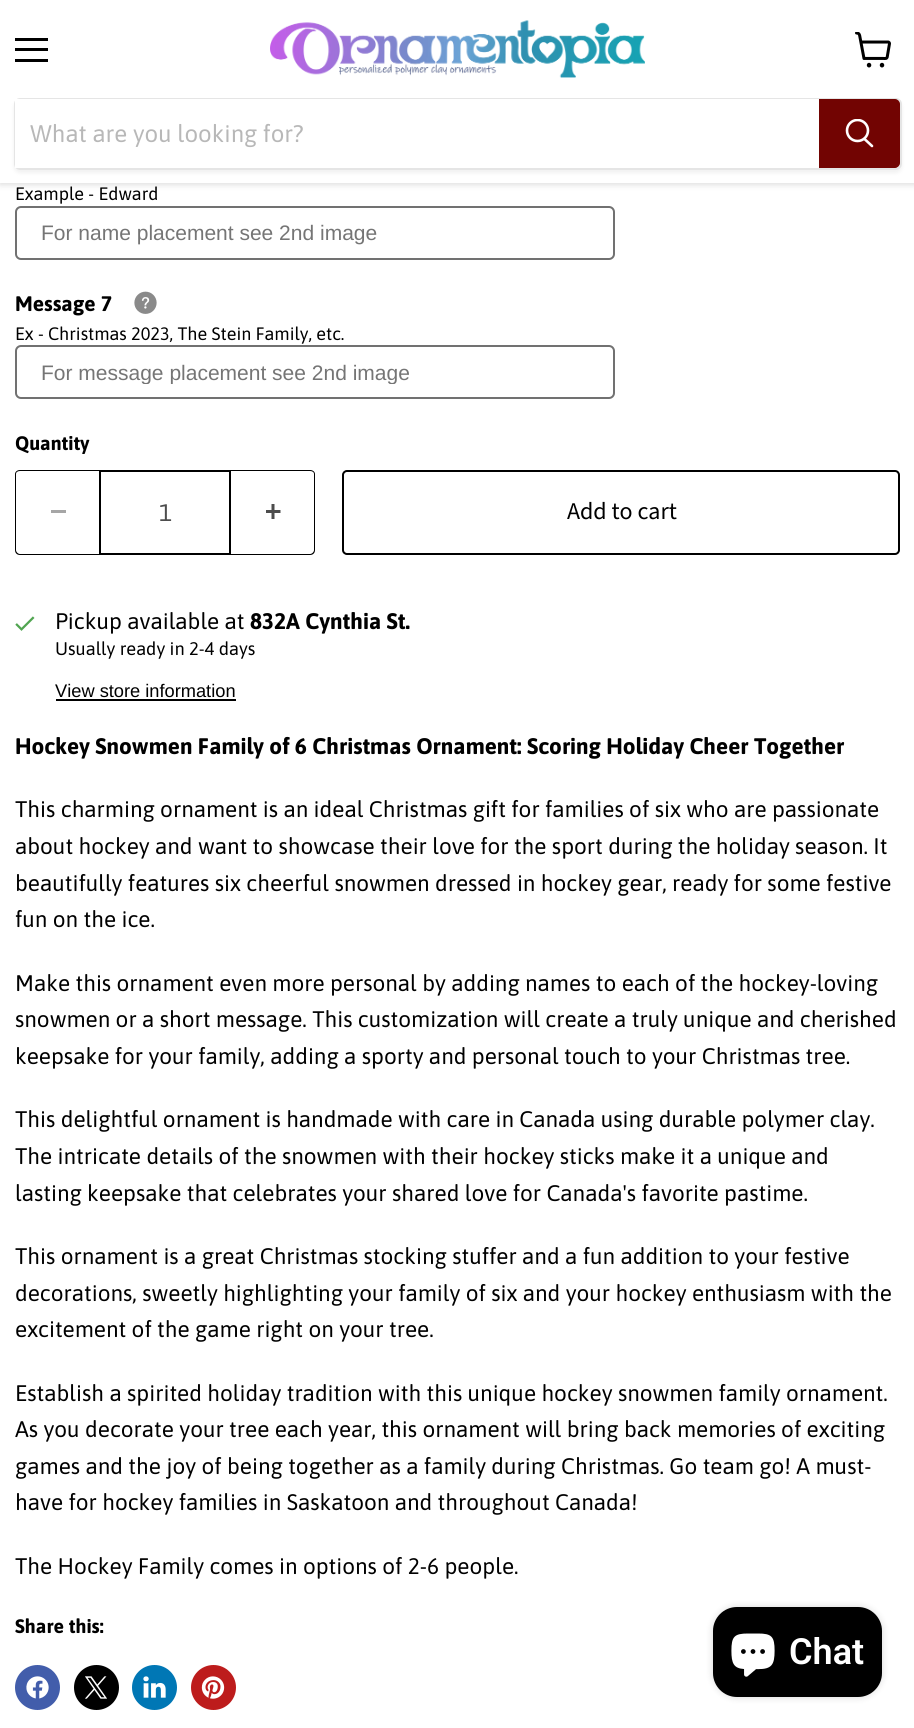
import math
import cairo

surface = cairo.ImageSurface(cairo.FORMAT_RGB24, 914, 1728)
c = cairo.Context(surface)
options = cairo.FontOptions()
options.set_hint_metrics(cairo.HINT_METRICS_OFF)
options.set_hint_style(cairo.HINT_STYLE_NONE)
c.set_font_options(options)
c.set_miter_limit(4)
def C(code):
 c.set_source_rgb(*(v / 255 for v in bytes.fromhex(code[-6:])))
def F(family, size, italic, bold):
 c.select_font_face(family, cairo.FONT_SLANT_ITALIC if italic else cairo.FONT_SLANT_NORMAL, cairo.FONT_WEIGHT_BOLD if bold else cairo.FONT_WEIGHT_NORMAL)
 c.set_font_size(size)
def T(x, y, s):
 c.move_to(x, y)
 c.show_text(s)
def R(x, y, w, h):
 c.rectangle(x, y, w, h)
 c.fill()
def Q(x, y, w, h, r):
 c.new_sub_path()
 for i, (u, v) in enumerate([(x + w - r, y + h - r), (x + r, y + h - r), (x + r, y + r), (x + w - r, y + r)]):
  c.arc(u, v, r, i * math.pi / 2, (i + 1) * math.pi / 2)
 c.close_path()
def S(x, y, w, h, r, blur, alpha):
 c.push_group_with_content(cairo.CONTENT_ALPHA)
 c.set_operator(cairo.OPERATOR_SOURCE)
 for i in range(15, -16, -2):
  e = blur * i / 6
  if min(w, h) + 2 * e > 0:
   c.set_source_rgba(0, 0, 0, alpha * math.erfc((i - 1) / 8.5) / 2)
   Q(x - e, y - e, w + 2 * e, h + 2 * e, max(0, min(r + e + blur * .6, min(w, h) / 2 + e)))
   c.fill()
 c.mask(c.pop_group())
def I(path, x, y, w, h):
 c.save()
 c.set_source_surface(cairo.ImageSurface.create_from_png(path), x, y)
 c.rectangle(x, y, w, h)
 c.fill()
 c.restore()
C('ffffff')
c.paint()
C('808080')
S(0,2,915,183,0,3,.25)
C('ffffff')
R(0,0,914,183)
C('000000')
R(15,38,33,3)
R(15,48,33,3)
R(15,59,33,3)
I('1.png',855,32,36,36)
I('2.png',270,20,375,58)
c.save()
c.set_fill_rule(cairo.FILL_RULE_EVEN_ODD)
c.new_path()
c.move_to(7,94)
c.line_to(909,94)
c.line_to(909,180)
c.line_to(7,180)
c.close_path()
c.move_to(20,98)
c.line_to(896,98)
c.curve_to(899.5,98,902,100.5,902,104)
c.line_to(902,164)
c.curve_to(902,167.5,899.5,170,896,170)
c.line_to(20,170)
c.curve_to(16.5,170,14,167.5,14,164)
c.line_to(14,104)
c.curve_to(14,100.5,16.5,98,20,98)
c.close_path()
c.clip()
C('808080')
S(14,101,888,72,6,2,.11)
c.restore()
Q(15,99,886,70,5)
c.set_source_rgba(0.502,0.502,0.502,0.2)
c.stroke()
C('ffffff')
R(15,99,804,69)
F('Asap',24,0,0)
C('b8b8b8')
T(30,142,'What are you looking for?')
C('720402')
c.new_path()
c.move_to(820,100)
c.line_to(895,100)
c.curve_to(897,100,899,102,899,104)
c.line_to(899,163)
c.curve_to(899,165,897,167,895,167)
c.line_to(820,167)
c.close_path()
c.fill_preserve()
c.stroke()
c.new_path()
c.move_to(872,146)
c.line_to(864.5,139)
C('ffffff')
c.set_line_width(2.6)
c.set_line_cap(cairo.LINE_CAP_ROUND)
c.stroke()
c.save()
c.rectangle(845,119,30,31)
c.clip()
c.arc(857.5,130.5,10.5,0,2 * math.pi)
c.set_line_cap(cairo.LINE_CAP_BUTT)
c.stroke()
c.restore()
F('Asap',18,0,0)
C('000000')
T(15,200,'Example - Edward')
Q(16,207,598,52,5)
C('717171')
c.set_line_width(2)
c.set_line_cap(cairo.LINE_CAP_BUTT)
c.stroke()
F('Liberation Sans',21,0,0)
C('757575')
T(41,240,'For name placement see 2nd image')
F('Asap',21,0,1)
C('000000')
T(15,311,'Message 7')
I('3.png',134,291,23,23)
F('Asap',18,0,0)
T(15,340,'Ex - Christmas 2023, The Stein Family, etc.')
Q(16,346,598,52,5)
C('717171')
c.stroke()
c.save()
c.rectangle(41,360,549,24)
c.clip()
F('Liberation Sans',21,0,0)
C('757575')
T(41,380,'For message placement see 2nd image')
c.restore()
F('Asap',19.5,0,1)
C('000000')
T(15,450,'Quantity')
c.set_fill_rule(cairo.FILL_RULE_EVEN_ODD)
c.new_path()
c.move_to(20,470)
c.line_to(99,470)
c.line_to(99,555)
c.line_to(20,555)
c.curve_to(17,555,15,553,15,550)
c.line_to(15,474)
c.curve_to(15,472,17,470,20,470)
c.close_path()
c.move_to(20,471)
c.line_to(99,471)
c.line_to(99,554)
c.line_to(20,554)
c.curve_to(18,554,16,552,16,550)
c.line_to(16,474)
c.curve_to(16,472,18,471,20,471)
c.close_path()
c.fill()
C('a6a6a6')
R(51,510,15,3)
c.rectangle(100,471,130,83)
C('000000')
c.stroke()
F('Asap',24,0,0)
C('4d4d4d')
T(159,521,'1')
C('000000')
c.new_path()
c.move_to(231,470)
c.line_to(310,470)
c.curve_to(313,470,315,472,315,474)
c.line_to(315,550)
c.curve_to(315,553,313,555,310,555)
c.line_to(231,555)
c.close_path()
c.move_to(231,471)
c.line_to(310,471)
c.curve_to(312,471,314,472,314,474)
c.line_to(314,550)
c.curve_to(314,552,312,554,310,554)
c.line_to(231,554)
c.close_path()
c.fill()
I('4.png',266,504,15,15)
Q(343,471,556,83,4)
c.stroke()
F('Source Sans Pro',24,0,0)
T(567,519,'Add to cart')
I('5.png',15,616,20,15)
F('Asap',22.5,0,0)
T(55,629,'Pickup available at')
F('Asap',22.5,0,1)
T(250,629,'832A Cynthia St.')
F('Asap',18.25,0,0)
T(55,655,'Usually ready in 2-4 days')
F('Liberation Sans',18.25,0,0)
T(55,697,'View store information')
R(56,699,180,2)
F('Asap',22.5,0,1)
T(15,754,'Hockey Snowmen Family of 6 Christmas Ornament: Scoring Holiday Cheer Together')
F('Asap',22.5,0,0)
T(15,817,'This charming ornament is an ideal Christmas gift for families of six who are passionate')
T(15,854,'about hockey and want to showcase their love for the sport during the holiday season. It')
T(15,891,'beautifully features six cheerful snowmen dressed in hockey gear, ready for some festive')
T(15,927,'fun on the ice.')
T(15,991,'Make this ornament even more personal by adding names to each of the hockey-loving')
T(15,1027,'snowmen or a short message. This customization will create a truly unique and cherished')
T(15,1064,'keepsake for your family, adding a sporty and personal touch to your Christmas tree.')
T(15,1127,'This delightful ornament is handmade with care in Canada using durable polymer clay.')
T(15,1164,'The intricate details of the snowmen with their hockey sticks make it a unique and')
T(15,1201,'lasting keepsake that celebrates your shared love for Canada\'s favorite pastime.')
T(15,1264,'This ornament is a great Christmas stocking stuffer and a fun addition to your festive')
T(15,1301,'decorations, sweetly highlighting your family of six and your hockey enthusiasm with the')
T(15,1337,'excitement of the game right on your tree.')
T(15,1401,'Establish a spirited holiday tradition with this unique hockey snowmen family ornament.')
T(15,1437,'As you decorate your tree each year, this ornament will bring back memories of exciting')
T(15,1474,'games and the joy of being together as a family during Christmas. Go team go! A must-')
T(15,1510,'have for hockey families in Saskatoon and throughout Canada!')
T(15,1574,'The Hockey Family comes in options of 2-6 people.')
F('Asap',19.5,0,1)
T(15,1633,'Share this:')
C('425dab')
c.new_path()
c.arc(37.5,1687.5,22.5,0,2 * math.pi)
c.fill()
I('6.png',26,1676,23,23)
C('000000')
c.arc(96.5,1687.5,22.5,0,2 * math.pi)
c.fill()
I('7.png',85,1676,22,23)
C('0077b5')
c.arc(154.5,1687.5,22.5,0,2 * math.pi)
c.fill()
I('8.png',143,1676,23,22)
C('bd1c1c')
c.arc(213.5,1687.5,22.5,0,2 * math.pi)
c.fill()
I('9.png',201,1676,24,23)
C('000000')
S(713,1607,169,90,24,4,.15)
C('000000')
Q(713,1607,169,90,24)
c.fill()
I('10.png',731,1633,44,44)
F('Roboto SemiBold',36,0,0)
C('ffffff')
T(789,1664,'Chat')
surface.write_to_png('o.png')
